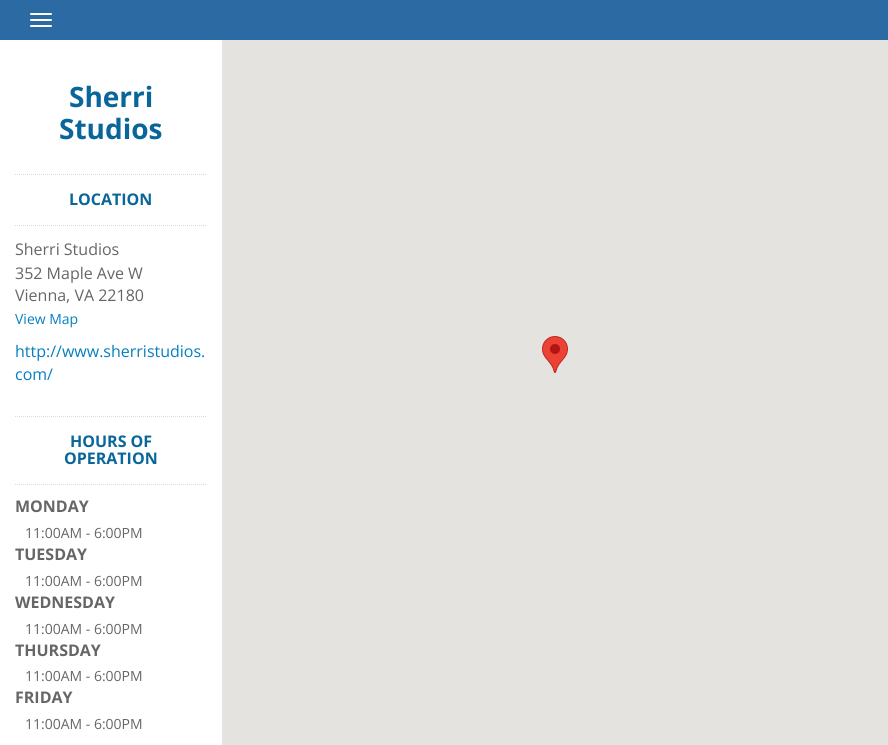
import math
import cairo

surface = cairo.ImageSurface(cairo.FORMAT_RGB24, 888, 745)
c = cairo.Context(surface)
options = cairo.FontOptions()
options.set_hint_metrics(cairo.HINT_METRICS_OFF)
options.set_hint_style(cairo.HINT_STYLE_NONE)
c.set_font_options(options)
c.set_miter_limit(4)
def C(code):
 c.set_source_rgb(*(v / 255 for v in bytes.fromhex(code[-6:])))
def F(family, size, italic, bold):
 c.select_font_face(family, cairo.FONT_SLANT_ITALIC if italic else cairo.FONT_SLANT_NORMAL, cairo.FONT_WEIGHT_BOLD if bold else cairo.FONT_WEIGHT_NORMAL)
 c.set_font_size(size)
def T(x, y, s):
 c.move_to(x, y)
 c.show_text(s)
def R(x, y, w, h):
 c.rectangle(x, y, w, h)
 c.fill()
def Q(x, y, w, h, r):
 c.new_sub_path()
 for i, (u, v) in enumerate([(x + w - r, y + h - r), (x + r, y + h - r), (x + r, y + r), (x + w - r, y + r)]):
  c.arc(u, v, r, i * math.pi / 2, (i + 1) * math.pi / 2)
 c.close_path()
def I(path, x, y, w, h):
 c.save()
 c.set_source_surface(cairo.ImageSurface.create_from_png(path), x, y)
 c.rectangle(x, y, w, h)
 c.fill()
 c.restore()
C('ffffff')
c.paint()
C('2b6aa3')
R(0,0,888,40)
C('ffffff')
Q(30,13,22,2,1)
c.fill()
Q(30,19,22,2,1)
c.fill()
Q(30,25,22,2,1)
c.fill()
F('Open Sans',28,0,1)
C('09669a')
T(69,107,'Sherri')
T(59,139,'Studios')
c.new_path()
c.move_to(15,174.5)
c.line_to(207,174.5)
C('dadada')
c.set_line_width(1)
c.set_dash([1,1])
c.stroke()
c.new_path()
c.move_to(15,225.5)
c.line_to(207,225.5)
c.stroke()
F('Open Sans',16,0,1)
C('09669a')
T(69,205,'LOCATION')
F('Open Sans',16,0,0)
C('666666')
T(15,255,'Sherri Studios')
T(15,279,'352 Maple Ave W')
T(15,301,'Vienna, VA 22180')
F('Open Sans',14,0,0)
C('057ec1')
T(15,324,'View Map')
F('Open Sans',16,0,0)
T(15,357,'http://www.sherristudios.')
T(15,380,'com/')
c.new_path()
c.move_to(15,416.5)
c.line_to(207,416.5)
C('dadada')
c.stroke()
c.new_path()
c.move_to(15,484.5)
c.line_to(207,484.5)
c.stroke()
F('Open Sans',16,0,1)
C('09669a')
T(70,447,'HOURS OF')
T(64,464,'OPERATION')
C('666666')
T(15,512,'MONDAY')
F('Open Sans',14,0,0)
T(25,538,'11:00AM - 6:00PM')
F('Open Sans',16,0,1)
T(15,560,'TUESDAY')
F('Open Sans',14,0,0)
T(25,586,'11:00AM - 6:00PM')
F('Open Sans',16,0,1)
T(15,608,'WEDNESDAY')
F('Open Sans',14,0,0)
T(25,634,'11:00AM - 6:00PM')
F('Open Sans',16,0,1)
T(15,656,'THURSDAY')
F('Open Sans',14,0,0)
T(25,681,'11:00AM - 6:00PM')
F('Open Sans',16,0,1)
T(15,703,'FRIDAY')
F('Open Sans',14,0,0)
T(25,729,'11:00AM - 6:00PM')
C('e5e3df')
R(222,40,666,705)
I('1.png',542,336,26,37)
surface.write_to_png('o.png')
